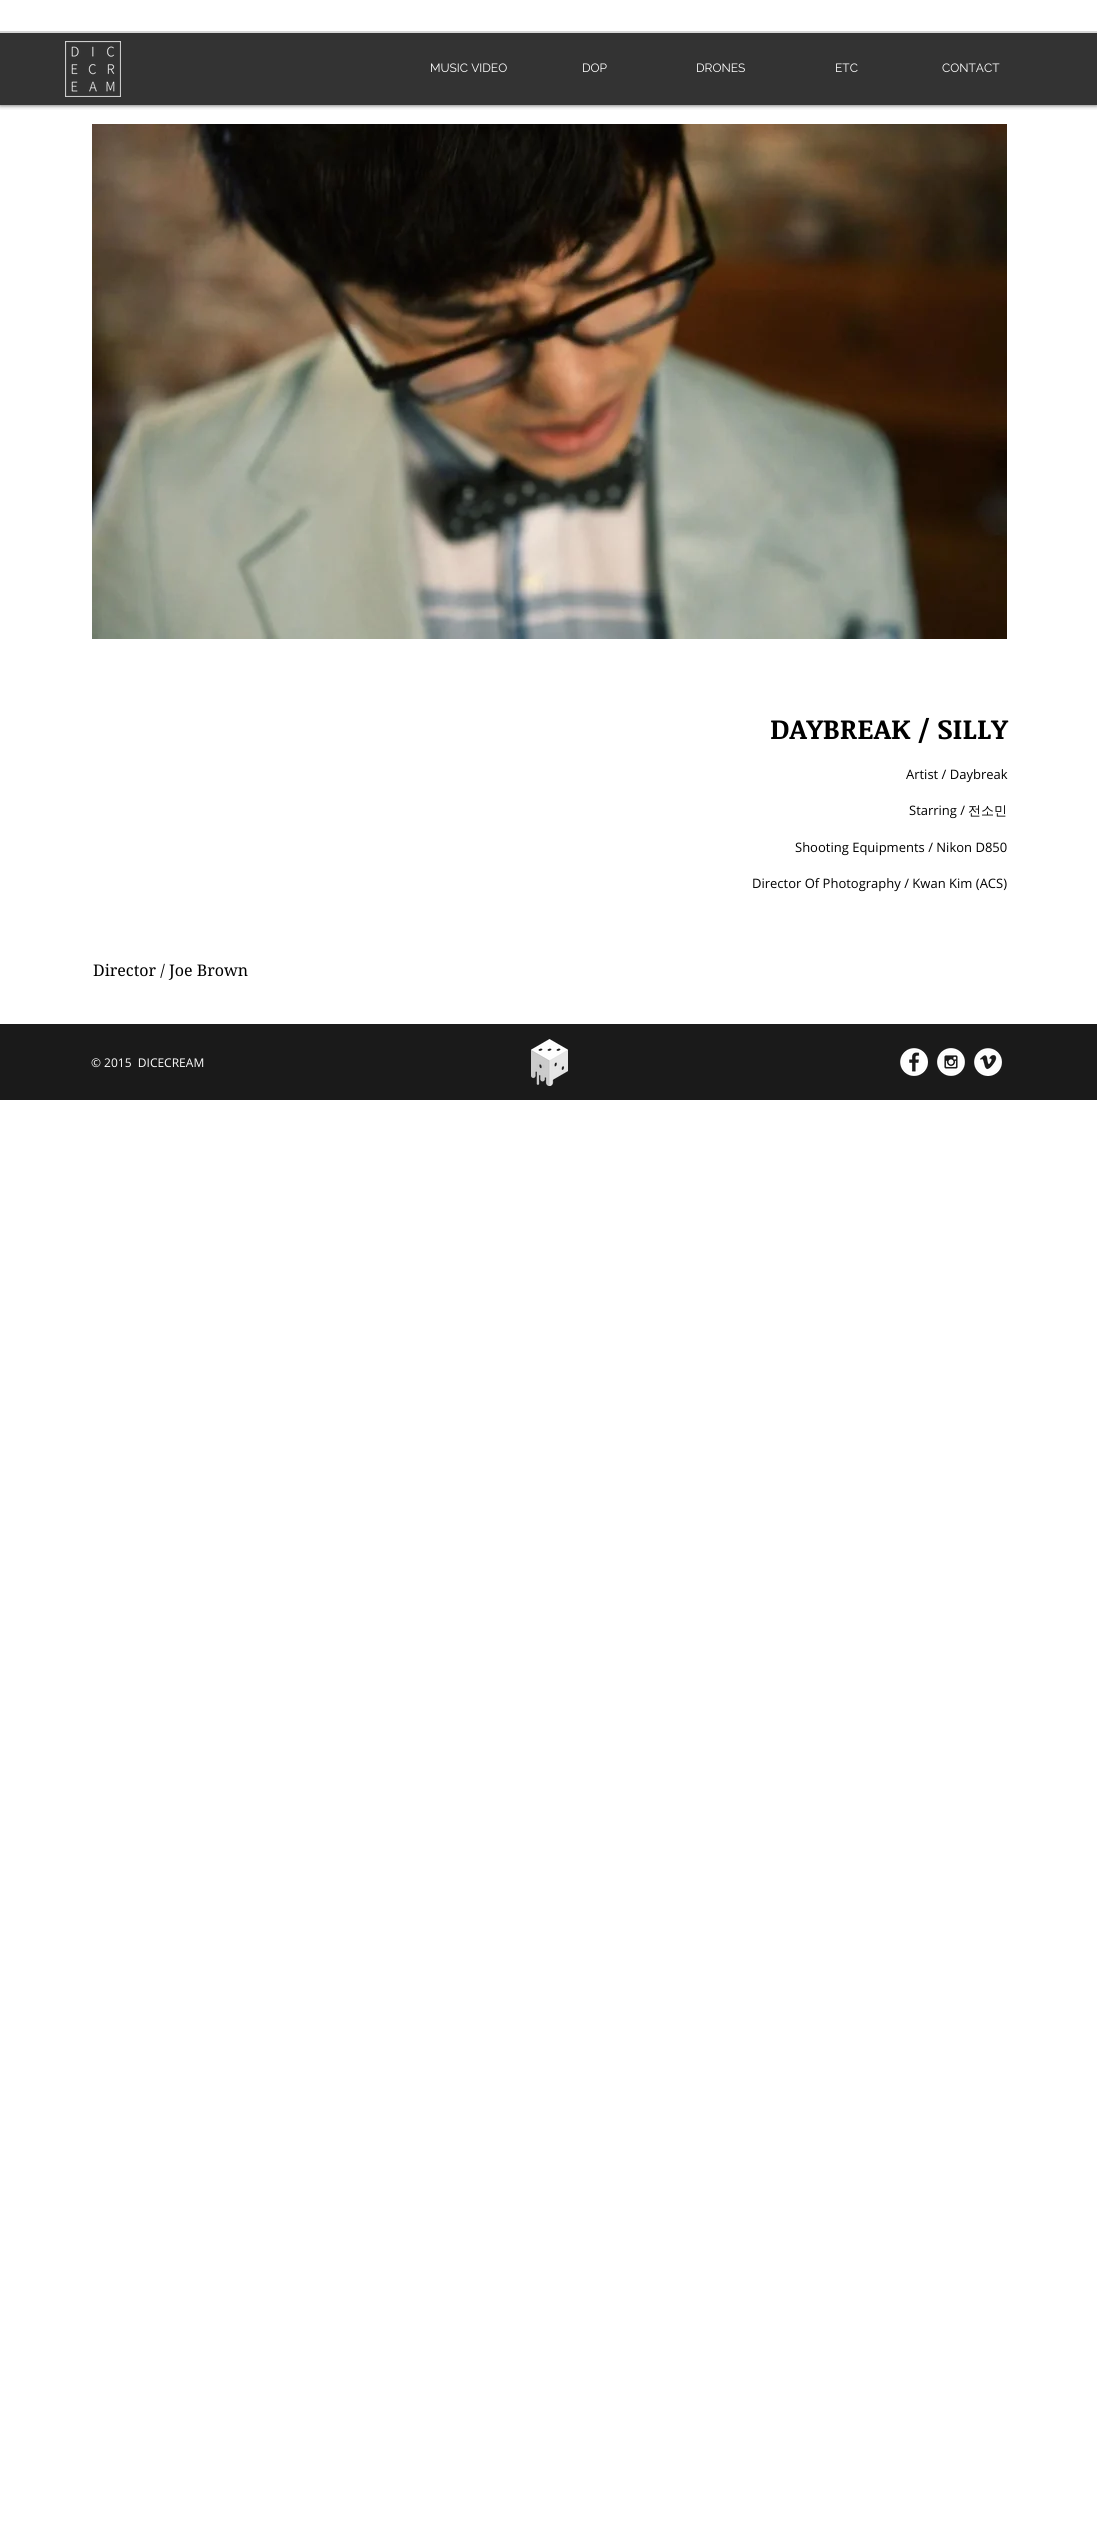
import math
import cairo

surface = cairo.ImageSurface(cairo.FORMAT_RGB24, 1097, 2546)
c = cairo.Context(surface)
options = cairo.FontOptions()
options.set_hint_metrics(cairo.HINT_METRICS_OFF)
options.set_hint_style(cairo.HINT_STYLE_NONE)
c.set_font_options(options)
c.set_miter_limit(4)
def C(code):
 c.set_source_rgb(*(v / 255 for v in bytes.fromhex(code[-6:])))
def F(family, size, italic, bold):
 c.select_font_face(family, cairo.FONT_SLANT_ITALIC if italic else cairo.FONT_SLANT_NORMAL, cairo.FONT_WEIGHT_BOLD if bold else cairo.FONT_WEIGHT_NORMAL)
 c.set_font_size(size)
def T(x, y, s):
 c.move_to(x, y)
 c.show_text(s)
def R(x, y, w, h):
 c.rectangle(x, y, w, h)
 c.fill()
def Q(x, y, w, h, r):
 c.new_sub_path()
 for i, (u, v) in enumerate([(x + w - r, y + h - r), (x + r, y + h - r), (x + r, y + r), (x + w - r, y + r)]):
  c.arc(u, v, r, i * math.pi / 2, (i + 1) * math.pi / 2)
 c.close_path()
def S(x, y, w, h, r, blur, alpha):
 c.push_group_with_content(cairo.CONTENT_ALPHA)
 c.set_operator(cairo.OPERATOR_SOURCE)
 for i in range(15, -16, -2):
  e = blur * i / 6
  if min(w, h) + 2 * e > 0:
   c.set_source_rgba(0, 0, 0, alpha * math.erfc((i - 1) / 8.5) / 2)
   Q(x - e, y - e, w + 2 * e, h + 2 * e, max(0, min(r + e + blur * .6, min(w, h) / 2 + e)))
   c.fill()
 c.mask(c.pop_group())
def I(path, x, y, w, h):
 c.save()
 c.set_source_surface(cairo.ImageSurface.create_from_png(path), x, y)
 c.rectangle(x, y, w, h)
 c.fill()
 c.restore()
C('ffffff')
c.paint()
c.save()
c.rectangle(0,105,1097,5)
c.clip()
C('000000')
S(0,0,1097,105,0,2.5,.7)
c.restore()
C('333333')
R(0,33,1097,72)
C('d6d6d6')
R(0,31,1097,2)
I('1.png',65,41,56,56)
F('Raleway',12,0,0)
C('ffffff')
T(430,72,'MUSIC VIDEO')
T(582,72,'DOP')
T(696,72,'DRONES')
T(835,72,'ETC')
T(942,72,'CONTACT')
I('2.png',92,124,915,515)
F('Noticia Text',28,0,1)
C('000000')
T(770,739,'DAYBREAK / SILLY')
F('Open Sans',13,0,0)
T(906,779,'Artist / Daybreak')
T(909,815,'Starring /')
F('WenQuanYi Zen Hei Medium',13,0,0)
T(968,815,'전소민')
F('Open Sans',13,0,0)
T(795,852,'Shooting Equipments / Nikon D850')
T(752,888,'Director Of Photography / Kwan Kim (ACS)')
F('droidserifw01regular',16,0,0)
T(93,976,'Director / Joe Brown')
C('1a1a1a')
R(0,1024,1097,76)
F('Open Sans',12,0,0)
C('ffffff')
T(91,1067,'© 2015  DICECREAM')
I('3.png',531,1039,37,47)
I('4.png',900,1048,28,28)
I('5.png',937,1048,28,28)
I('6.png',974,1048,28,28)
surface.write_to_png('o.png')
